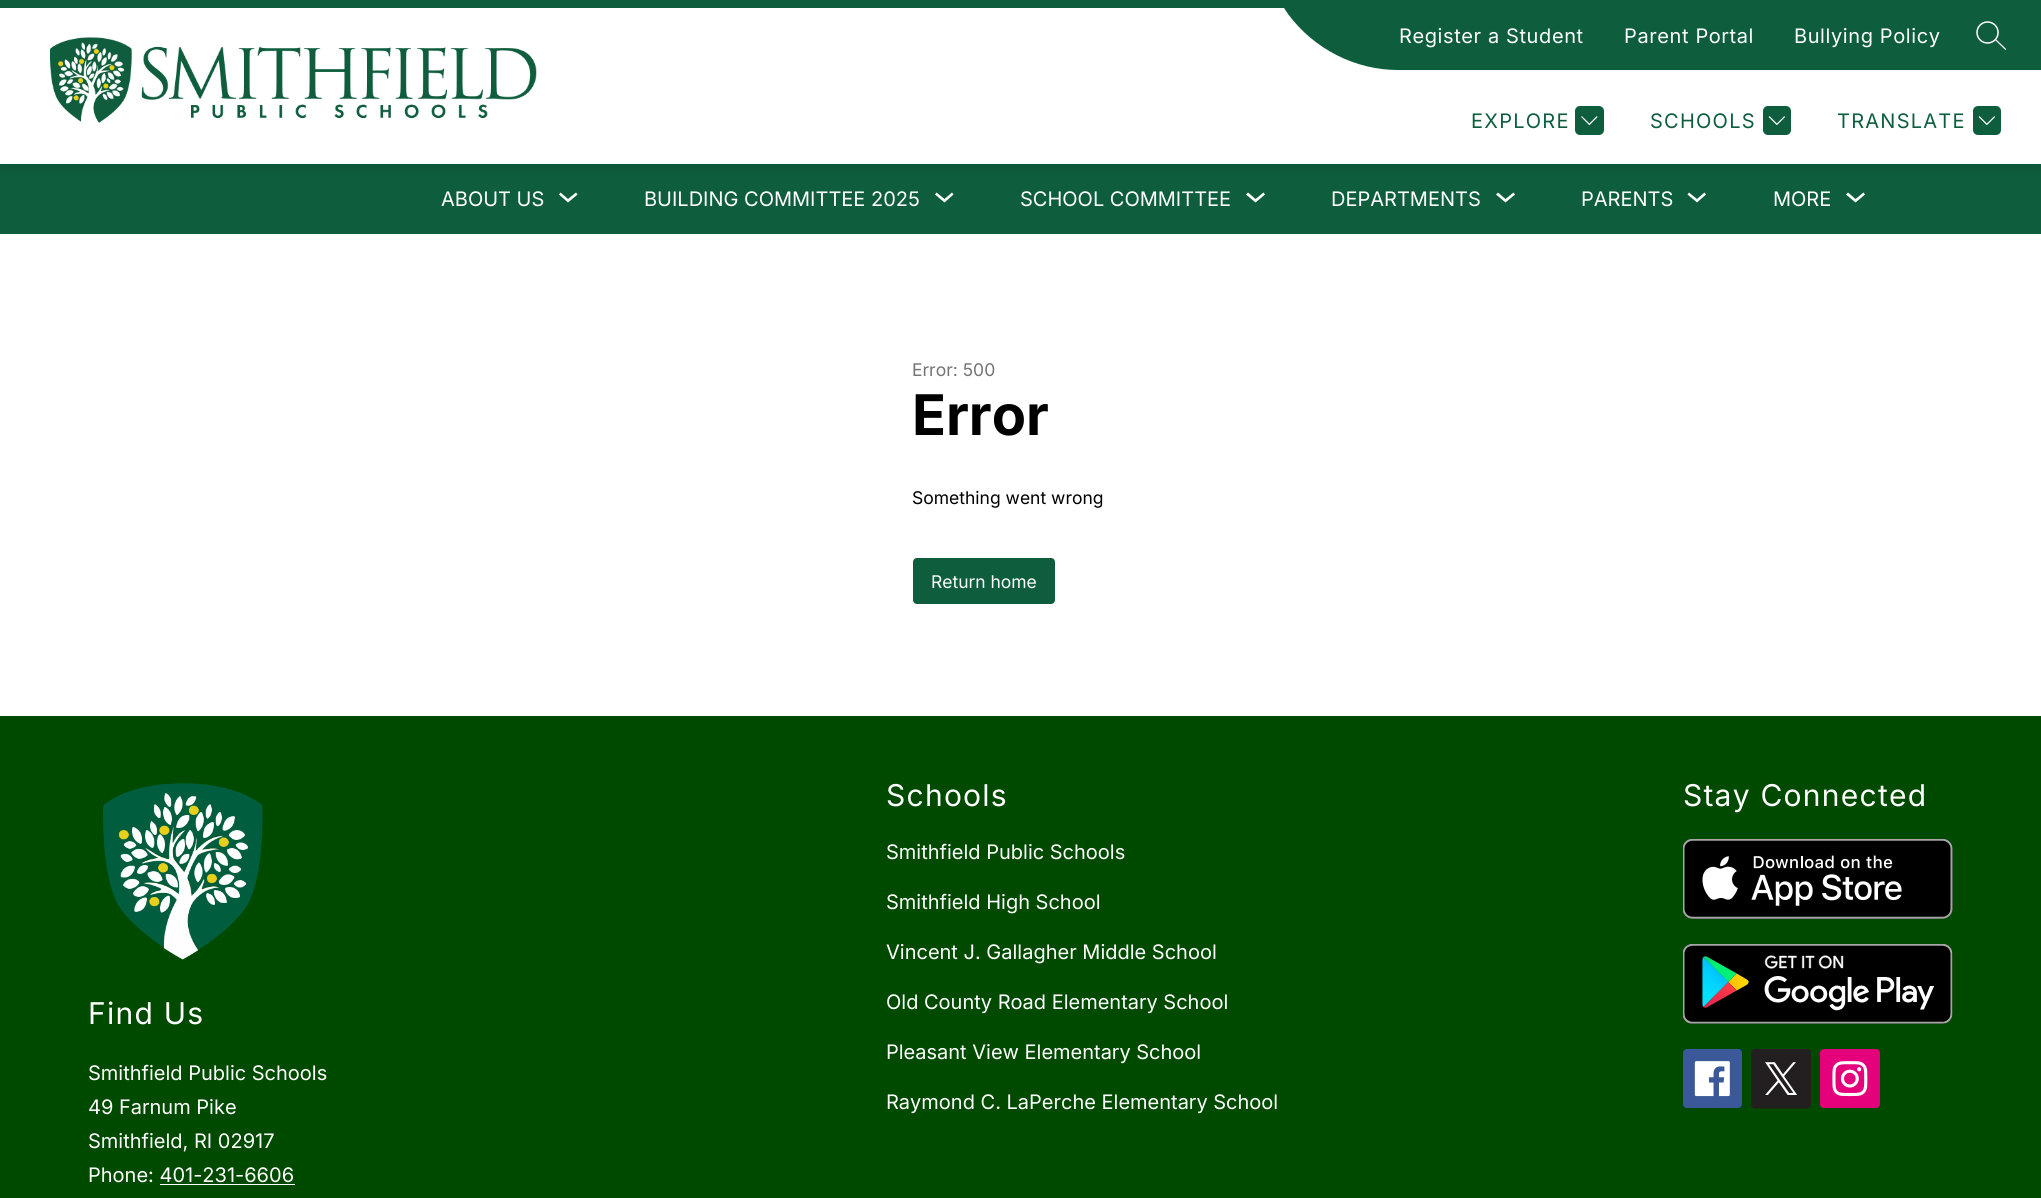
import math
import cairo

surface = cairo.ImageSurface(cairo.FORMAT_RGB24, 2041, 1198)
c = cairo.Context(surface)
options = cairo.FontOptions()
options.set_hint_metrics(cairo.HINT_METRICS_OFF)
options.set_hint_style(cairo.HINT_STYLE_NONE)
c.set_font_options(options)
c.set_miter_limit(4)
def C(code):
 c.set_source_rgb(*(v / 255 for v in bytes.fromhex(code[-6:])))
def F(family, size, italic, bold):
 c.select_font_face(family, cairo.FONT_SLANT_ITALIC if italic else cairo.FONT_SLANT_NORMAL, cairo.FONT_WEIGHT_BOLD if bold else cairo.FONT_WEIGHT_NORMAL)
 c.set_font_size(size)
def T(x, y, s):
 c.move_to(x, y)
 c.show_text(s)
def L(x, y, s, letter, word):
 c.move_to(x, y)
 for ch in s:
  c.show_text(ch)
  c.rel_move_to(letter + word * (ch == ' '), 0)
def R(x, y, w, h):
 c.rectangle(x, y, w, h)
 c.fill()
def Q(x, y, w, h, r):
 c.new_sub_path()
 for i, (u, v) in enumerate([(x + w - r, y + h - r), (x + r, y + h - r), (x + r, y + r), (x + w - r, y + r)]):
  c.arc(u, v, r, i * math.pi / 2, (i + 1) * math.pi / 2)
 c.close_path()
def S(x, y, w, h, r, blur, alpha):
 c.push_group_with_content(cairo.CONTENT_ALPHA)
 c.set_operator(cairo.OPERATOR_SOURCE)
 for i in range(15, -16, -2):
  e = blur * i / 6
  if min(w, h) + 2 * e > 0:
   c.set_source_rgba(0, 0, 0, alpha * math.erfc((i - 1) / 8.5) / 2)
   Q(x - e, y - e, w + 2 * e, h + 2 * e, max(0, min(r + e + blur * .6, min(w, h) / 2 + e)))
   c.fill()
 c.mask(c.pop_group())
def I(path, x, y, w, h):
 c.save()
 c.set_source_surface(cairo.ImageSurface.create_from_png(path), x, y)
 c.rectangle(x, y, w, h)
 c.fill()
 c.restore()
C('ffffff')
c.paint()
C('0e5e3d')
R(0,164,2041,70)
C('000000')
S(0,5,2041,164,0,6,.1)
C('ffffff')
R(0,8,2041,156)
C('0e5e3d')
R(0,0,1284,8)
I('1.png',50,37,487,86)
R(1401,0,640,70)
c.new_path()
c.move_to(1398,70)
c.line_to(1401,70)
c.line_to(1401,0)
c.line_to(1281,0)
c.curve_to(1280,0,1280,1,1280,2)
c.line_to(1288,14)
c.curve_to(1314,49,1355,70,1398,70)
c.close_path()
c.fill()
F('Inter',20,0,0)
C('ffffff')
L(1399,43,'Register a Student',.6,0)
L(1624,43,'Parent Portal',.6,0)
L(1794,43,'Bullying Policy',.6,0)
I('2.png',1976,21,30,29)
C('0e5e3d')
L(1471,128,'EXPLORE',1.25,0)
I('3.png',1575,106,29,29)
L(1650,128,'SCHOOLS',1.25,0)
I('4.png',1763,106,28,29)
L(1837,128,'TRANSLATE',1.25,0)
I('4.png',1973,106,28,29)
C('ffffff')
T(441,206,'ABOUT US')
c.set_fill_rule(cairo.FILL_RULE_EVEN_ODD)
c.new_path()
c.move_to(576,192.5)
c.line_to(568,199)
c.line_to(560.5,192.5)
c.line_to(559,194.5)
c.line_to(568,202.5)
c.line_to(577.5,194.5)
c.close_path()
c.fill()
T(644,206,'BUILDING COMMITTEE 2025')
c.new_path()
c.move_to(952,192.5)
c.line_to(944.5,199)
c.line_to(936.5,192.5)
c.line_to(935,194.5)
c.line_to(944.5,202.5)
c.line_to(953.5,194.5)
c.close_path()
c.fill()
T(1020,206,'SCHOOL COMMITTEE')
c.new_path()
c.move_to(1263.5,192.5)
c.line_to(1255.5,199)
c.line_to(1248,192.5)
c.line_to(1246,194.5)
c.line_to(1255.5,202.5)
c.line_to(1265,194.5)
c.close_path()
c.fill()
T(1331,206,'DEPARTMENTS')
c.new_path()
c.move_to(1513.5,192.5)
c.line_to(1505.5,199)
c.line_to(1498,192.5)
c.line_to(1496,194.5)
c.line_to(1505.5,202.5)
c.line_to(1515,194.5)
c.close_path()
c.fill()
T(1581,206,'PARENTS')
c.new_path()
c.move_to(1704.5,192.5)
c.line_to(1697,199)
c.line_to(1689,192.5)
c.line_to(1687.5,194.5)
c.line_to(1697,202.5)
c.line_to(1706,194.5)
c.close_path()
c.fill()
T(1773,206,'MORE')
c.new_path()
c.move_to(1863.5,192.5)
c.line_to(1855.5,199)
c.line_to(1848,192.5)
c.line_to(1846,194.5)
c.line_to(1855.5,202.5)
c.line_to(1865,194.5)
c.close_path()
c.fill()
F('Inter',17.5,0,0)
C('747474')
T(912,376,'Error: 500')
F('Inter',56,0,1)
C('000000')
T(912,435,'Error')
F('Inter',17.5,0,0)
T(912,504,'Something went wrong')
C('0e5e3d')
Q(913,558,142,46,4)
c.fill()
C('ffffff')
T(931,588,'Return home')
C('004a00')
R(0,716,2041,482)
F('Inter',30,0,0)
C('ffffff')
L(886,806,'Schools',1.25,0)
F('Inter',20,0,0)
T(886,859,'Smithfield Public Schools')
T(886,909,'Smithfield High School')
T(886,959,'Vincent J. Gallagher Middle School')
T(886,1009,'Old County Road Elementary School')
T(886,1059,'Pleasant View Elementary School')
T(886,1109,'Raymond C. LaPerche Elementary School')
F('Inter',30,0,0)
L(1683,806,'Stay Connected',1.25,0)
I('5.png',1683,839,270,80)
I('6.png',1683,944,270,80)
I('7.png',1683,1049,59,59)
I('8.png',1751,1049,60,60)
I('9.png',1820,1049,60,59)
I('10.png',103,783,160,177)
L(88,1024,'Find Us',1.25,0)
F('Inter',20,0,0)
T(88,1080,'Smithfield Public Schools')
T(88,1114,'49 Farnum Pike')
T(88,1148,'Smithfield, RI 02917')
T(88,1182,'Phone: 401-231-6606')
R(160,1184,135,1)
surface.write_to_png('o.png')
